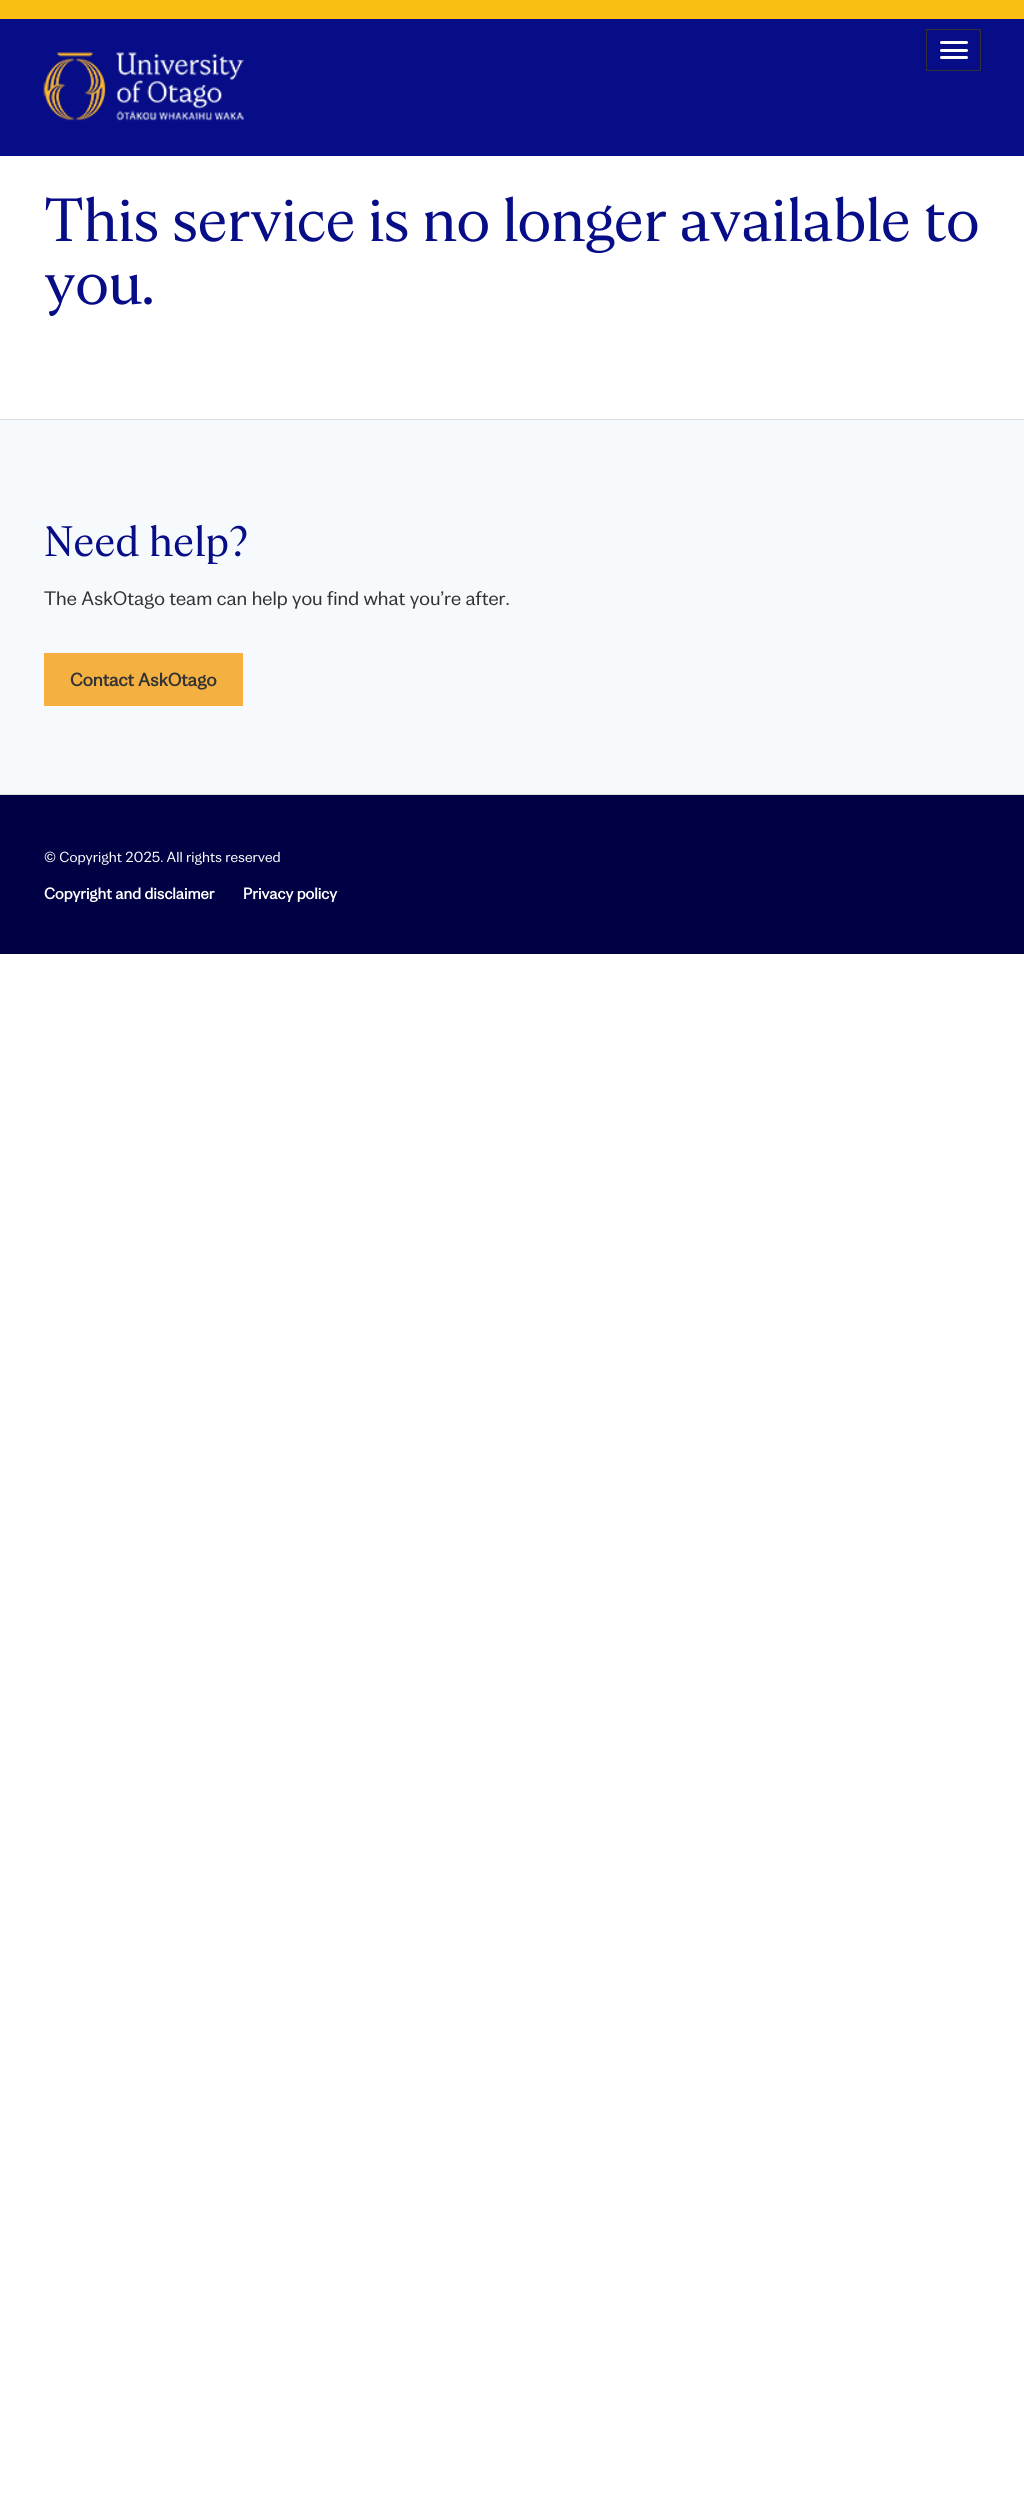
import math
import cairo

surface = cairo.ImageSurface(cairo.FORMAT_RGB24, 1024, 2510)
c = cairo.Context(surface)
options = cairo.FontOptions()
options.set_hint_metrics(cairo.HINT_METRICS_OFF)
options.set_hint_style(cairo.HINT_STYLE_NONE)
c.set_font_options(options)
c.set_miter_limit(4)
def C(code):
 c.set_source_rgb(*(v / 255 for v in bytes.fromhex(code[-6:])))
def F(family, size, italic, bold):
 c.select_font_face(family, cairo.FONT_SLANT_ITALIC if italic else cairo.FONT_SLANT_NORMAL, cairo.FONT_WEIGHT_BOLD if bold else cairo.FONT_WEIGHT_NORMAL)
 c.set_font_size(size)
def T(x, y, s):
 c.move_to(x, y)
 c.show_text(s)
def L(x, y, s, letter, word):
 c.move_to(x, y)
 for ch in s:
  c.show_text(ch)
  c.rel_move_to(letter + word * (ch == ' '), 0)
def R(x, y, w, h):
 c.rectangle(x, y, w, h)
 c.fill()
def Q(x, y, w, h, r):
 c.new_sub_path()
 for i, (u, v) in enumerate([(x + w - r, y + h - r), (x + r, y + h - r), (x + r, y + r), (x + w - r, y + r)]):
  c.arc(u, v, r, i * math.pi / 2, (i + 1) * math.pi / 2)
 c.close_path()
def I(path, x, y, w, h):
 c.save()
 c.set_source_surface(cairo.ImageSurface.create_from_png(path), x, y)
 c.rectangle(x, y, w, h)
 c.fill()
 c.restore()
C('ffffff')
c.paint()
C('f9c013')
R(0,0,1024,19)
C('060d87')
R(0,19,1024,137)
I('1.png',43,52,201,69)
c.rectangle(926.5,29.5,54,41)
C('333333')
c.set_line_width(1)
c.stroke()
C('ffffff')
Q(940,41,28,3,1.5)
c.fill()
Q(940,49,28,3,1.5)
c.fill()
Q(940,56,28,3,1.5)
c.fill()
F('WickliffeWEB',62.5,0,0)
C('060d87')
L(44,241,'This service is no longer available to',-.6,0)
L(44,304,'you.',-.6,0)
C('f7fafc')
R(0,420,1024,374)
C('dddddd')
R(0,419,1024,1)
F('WickliffeWEB',43.75,0,0)
C('060d87')
T(44,556,'Need help?')
F('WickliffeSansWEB',20,0,0)
C('333333')
T(44,605,'The AskOtago team can help you find what you’re after.')
C('f4b142')
R(44,653,199,53)
F('WickliffeSansWEB',18.75,0,1)
C('333333')
T(70,686,'Contact AskOtago')
C('000044')
R(0,795,1024,159)
C('dddddd')
R(0,794,1024,1)
F('WickliffeSansWEB',15,0,0)
C('ffffff')
T(44,862,'© Copyright 2025. All rights reserved')
F('WickliffeSansWEB',16.25,0,1)
T(44,899,'Copyright and disclaimer')
T(243,899,'Privacy policy')
surface.write_to_png('o.png')
